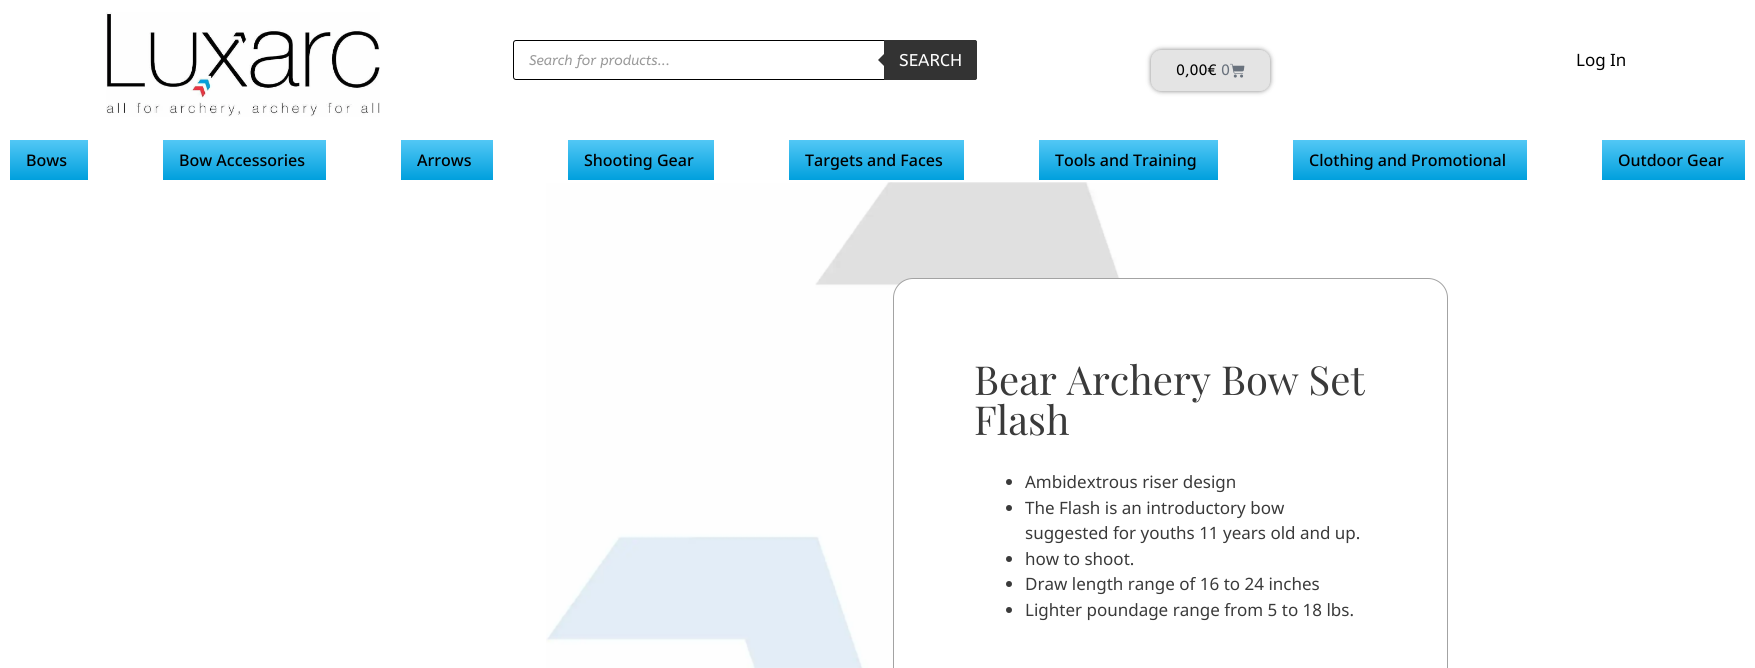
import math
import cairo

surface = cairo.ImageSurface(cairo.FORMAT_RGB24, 1755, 668)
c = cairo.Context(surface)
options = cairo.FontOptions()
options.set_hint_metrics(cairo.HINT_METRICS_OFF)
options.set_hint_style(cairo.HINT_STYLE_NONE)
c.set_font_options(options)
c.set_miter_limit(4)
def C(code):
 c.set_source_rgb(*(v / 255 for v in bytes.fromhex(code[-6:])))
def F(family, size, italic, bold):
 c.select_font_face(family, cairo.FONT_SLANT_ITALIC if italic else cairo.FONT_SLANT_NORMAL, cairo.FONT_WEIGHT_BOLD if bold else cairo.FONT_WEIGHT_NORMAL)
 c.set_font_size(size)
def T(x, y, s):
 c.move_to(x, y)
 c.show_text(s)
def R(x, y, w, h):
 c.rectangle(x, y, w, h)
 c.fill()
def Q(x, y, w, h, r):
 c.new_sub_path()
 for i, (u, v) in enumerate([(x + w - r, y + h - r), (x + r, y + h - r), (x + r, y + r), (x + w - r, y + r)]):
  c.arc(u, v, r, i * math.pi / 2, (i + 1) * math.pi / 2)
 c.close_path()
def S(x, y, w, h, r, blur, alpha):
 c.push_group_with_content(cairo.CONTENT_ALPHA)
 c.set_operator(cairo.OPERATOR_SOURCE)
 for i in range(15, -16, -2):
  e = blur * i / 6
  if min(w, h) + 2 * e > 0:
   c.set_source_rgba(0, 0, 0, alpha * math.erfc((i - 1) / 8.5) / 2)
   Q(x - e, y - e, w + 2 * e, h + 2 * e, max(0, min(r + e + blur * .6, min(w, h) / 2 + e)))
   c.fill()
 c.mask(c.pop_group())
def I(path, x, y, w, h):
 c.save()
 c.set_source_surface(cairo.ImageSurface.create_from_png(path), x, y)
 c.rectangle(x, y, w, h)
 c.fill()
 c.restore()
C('ffffff')
c.paint()
I('1.png',546,182,604,486)
I('2.png',106,12,274,105)
Q(513.5,40.5,463,39,2.5)
C('000000')
c.set_line_width(1)
c.stroke()
F('ABeeZee',14,1,0)
C('999999')
T(529,65,'Search for products...')
C('333333')
c.new_path()
c.move_to(884,40)
c.line_to(975,40)
c.curve_to(976,40,977,41,977,42)
c.line_to(977,78)
c.curve_to(977,79,976,80,975,80)
c.line_to(884,80)
c.close_path()
c.fill()
c.new_path()
c.move_to(886,52)
c.line_to(886,68)
c.line_to(878,60)
c.close_path()
c.fill()
F('ABeeZee',17,0,0)
C('ffffff')
T(899,66,'SEARCH')
C('000000')
S(1151,50,119,41,10,2.5,.5)
C('e4e4e4')
Q(1151.5,50.5,118,40,9.5)
c.fill_preserve()
c.stroke()
F('ABeeZee',15,0,0)
C('000000')
T(1176,75,'0,00€')
C('69727d')
T(1221,75,'0')
I('3.png',1230,63,15,15)
F('Noto Sans',17,0,0)
C('000000')
T(1576,66,'Log In')
gradient = cairo.LinearGradient(49,140,49,180)
gradient.add_color_stop_rgba(0,0.322,0.784,0.961,1)
gradient.add_color_stop_rgba(1,0,0.627,0.867,1)
c.set_source(gradient)
R(10,140,78,40)
F('Noto Sans Medium',16,0,0)
C('000000')
T(26,166,'Bows')
gradient = cairo.LinearGradient(245,140,245,180)
gradient.add_color_stop_rgba(0,0.322,0.784,0.961,1)
gradient.add_color_stop_rgba(1,0,0.627,0.867,1)
c.set_source(gradient)
R(163,140,163,40)
C('000000')
T(179,166,'Bow Accessories')
gradient = cairo.LinearGradient(447,140,447,180)
gradient.add_color_stop_rgba(0,0.322,0.784,0.961,1)
gradient.add_color_stop_rgba(1,0,0.627,0.867,1)
c.set_source(gradient)
R(401,140,92,40)
C('000000')
T(417,166,'Arrows')
gradient = cairo.LinearGradient(641,140,641,180)
gradient.add_color_stop_rgba(0,0.322,0.784,0.961,1)
gradient.add_color_stop_rgba(1,0,0.627,0.867,1)
c.set_source(gradient)
R(568,140,146,40)
C('000000')
T(584,166,'Shooting Gear')
gradient = cairo.LinearGradient(877,140,877,180)
gradient.add_color_stop_rgba(0,0.322,0.784,0.961,1)
gradient.add_color_stop_rgba(1,0,0.627,0.867,1)
c.set_source(gradient)
R(789,140,175,40)
C('000000')
T(805,166,'Targets and Faces')
gradient = cairo.LinearGradient(1129,140,1129,180)
gradient.add_color_stop_rgba(0,0.322,0.784,0.961,1)
gradient.add_color_stop_rgba(1,0,0.627,0.867,1)
c.set_source(gradient)
R(1039,140,179,40)
C('000000')
T(1055,166,'Tools and Training')
gradient = cairo.LinearGradient(1410,140,1410,180)
gradient.add_color_stop_rgba(0,0.322,0.784,0.961,1)
gradient.add_color_stop_rgba(1,0,0.627,0.867,1)
c.set_source(gradient)
R(1293,140,234,40)
C('000000')
T(1309,166,'Clothing and Promotional')
gradient = cairo.LinearGradient(1674,140,1674,180)
gradient.add_color_stop_rgba(0,0.322,0.784,0.961,1)
gradient.add_color_stop_rgba(1,0,0.627,0.867,1)
c.set_source(gradient)
R(1602,140,143,40)
C('000000')
T(1618,166,'Outdoor Gear')
C('ffffff')
Q(893.5,278.5,554,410,19.5)
c.fill_preserve()
C('a3a3a3')
c.stroke()
F('Playfair Display',40,0,0)
C('3a3a3a')
T(974,395,'Bear Archery Bow Set')
T(974,435,'Flash')
c.new_path()
c.arc(1009,482,3,0,2 * math.pi)
c.fill()
F('Noto Sans',17,0,0)
T(1025,488,'Ambidextrous riser design')
c.new_path()
c.arc(1009,508,3,0,2 * math.pi)
c.fill()
T(1025,514,'The Flash is an introductory bow')
T(1025,539,'suggested for youths 11 years old and up.')
c.new_path()
c.arc(1009,559,3,0,2 * math.pi)
c.fill()
T(1025,565,'how to shoot.')
c.new_path()
c.arc(1009,584,3,0,2 * math.pi)
c.fill()
T(1025,590,'Draw length range of 16 to 24 inches')
c.new_path()
c.arc(1009,610,3,0,2 * math.pi)
c.fill()
T(1025,616,'Lighter poundage range from 5 to 18 lbs.')
surface.write_to_png('o.png')
